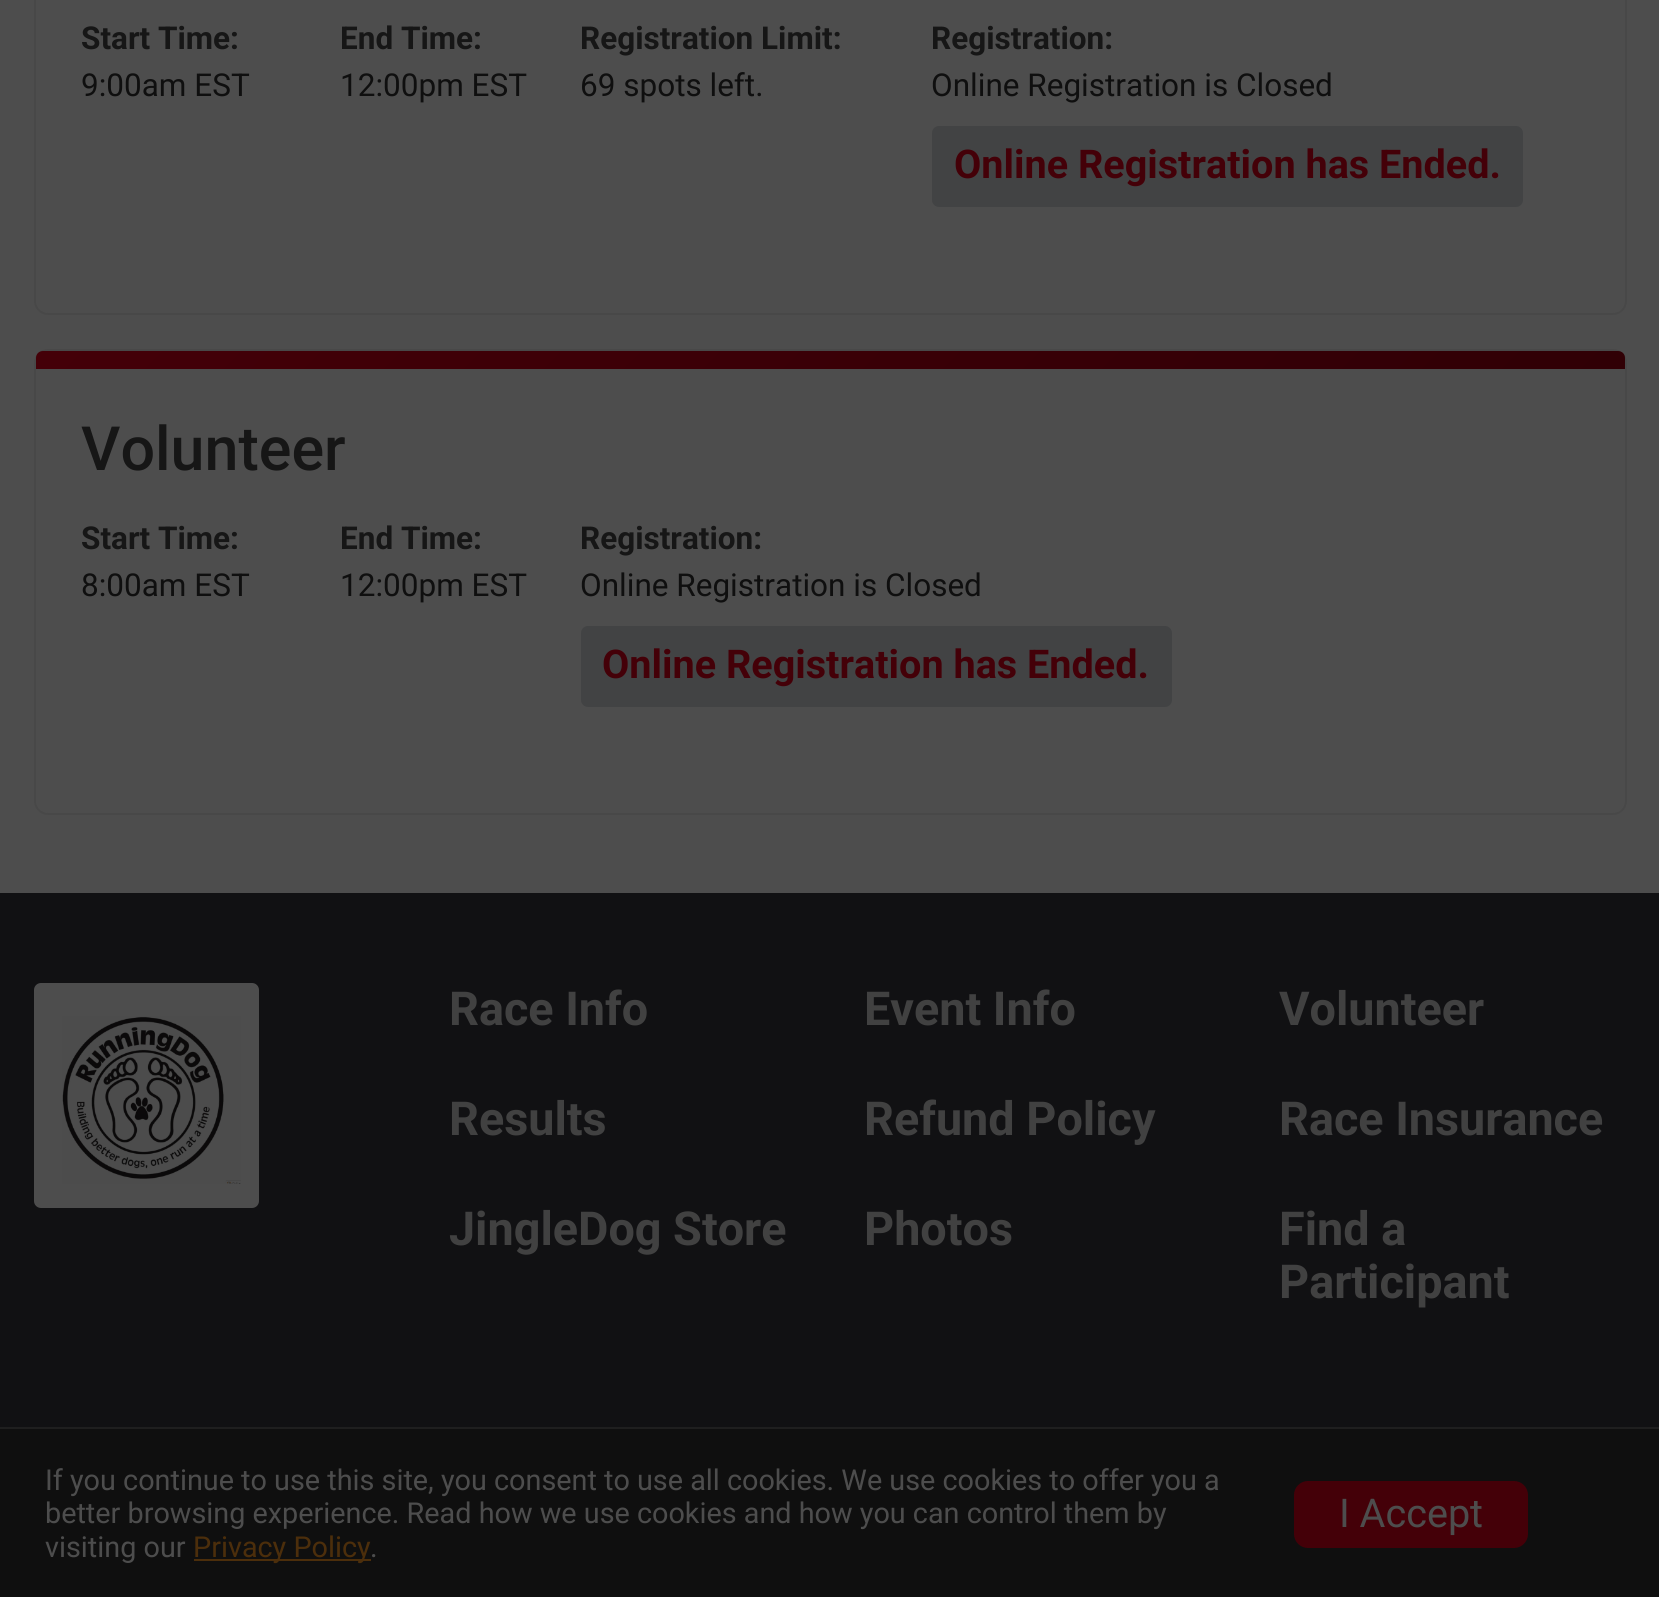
import math
import cairo

surface = cairo.ImageSurface(cairo.FORMAT_RGB24, 1659, 1597)
c = cairo.Context(surface)
options = cairo.FontOptions()
options.set_hint_metrics(cairo.HINT_METRICS_OFF)
options.set_hint_style(cairo.HINT_STYLE_NONE)
c.set_font_options(options)
c.set_miter_limit(4)
def C(code):
 c.set_source_rgb(*(v / 255 for v in bytes.fromhex(code[-6:])))
def F(family, size, italic, bold):
 c.select_font_face(family, cairo.FONT_SLANT_ITALIC if italic else cairo.FONT_SLANT_NORMAL, cairo.FONT_WEIGHT_BOLD if bold else cairo.FONT_WEIGHT_NORMAL)
 c.set_font_size(size)
def T(x, y, s):
 c.move_to(x, y)
 c.show_text(s)
def R(x, y, w, h):
 c.rectangle(x, y, w, h)
 c.fill()
def Q(x, y, w, h, r):
 c.new_sub_path()
 for i, (u, v) in enumerate([(x + w - r, y + h - r), (x + r, y + h - r), (x + r, y + r), (x + w - r, y + r)]):
  c.arc(u, v, r, i * math.pi / 2, (i + 1) * math.pi / 2)
 c.close_path()
def I(path, x, y, w, h):
 c.save()
 c.set_source_surface(cairo.ImageSurface.create_from_png(path), x, y)
 c.rectangle(x, y, w, h)
 c.fill()
 c.restore()
C('4d4d4d')
c.paint()
Q(35,-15,1591,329,13)
C('484848')
c.stroke()
F('Roboto',31.5,0,1)
C('161616')
T(81,49,'Start Time:')
F('Roboto',31.5,0,0)
C('0f0f0f')
T(81,96,'9:00am EST')
F('Roboto',31.5,0,1)
C('161616')
T(340,49,'End Time:')
F('Roboto',31.5,0,0)
C('0f0f0f')
T(340,96,'12:00pm EST')
F('Roboto',31.5,0,1)
C('161616')
T(580,49,'Registration Limit:')
F('Roboto',31.5,0,0)
C('0f0f0f')
T(580,96,'69 spots left.')
F('Roboto',31.5,0,1)
C('161616')
T(931,49,'Registration:')
F('Roboto',31.5,0,0)
C('0f0f0f')
T(931,96,'Online Registration is Closed')
C('424344')
Q(932,126,591,81,7)
c.fill()
F('Roboto',39.6,0,1)
C('440008')
T(954,178,'Online Registration has Ended.')
Q(35,350,1591,464,13)
C('484848')
c.stroke()
gradient = cairo.LinearGradient(1232,762,429,-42)
gradient.add_color_stop_rgba(0,0.188,0,0.02,1)
gradient.add_color_stop_rgba(1,0.267,0,0.031,1)
c.set_source(gradient)
c.new_path()
c.move_to(43,351)
c.line_to(1618,351)
c.curve_to(1622,351,1625,354,1625,358)
c.line_to(1625,369)
c.line_to(36,369)
c.line_to(36,358)
c.curve_to(36,354,39,351,43,351)
c.close_path()
c.fill()
F('Roboto Medium',61,0,0)
C('161616')
T(81,470,'Volunteer')
F('Roboto',31.5,0,1)
T(81,549,'Start Time:')
F('Roboto',31.5,0,0)
C('0f0f0f')
T(81,596,'8:00am EST')
F('Roboto',31.5,0,1)
C('161616')
T(340,549,'End Time:')
F('Roboto',31.5,0,0)
C('0f0f0f')
T(340,596,'12:00pm EST')
F('Roboto',31.5,0,1)
C('161616')
T(580,549,'Registration:')
F('Roboto',31.5,0,0)
C('0f0f0f')
T(580,596,'Online Registration is Closed')
C('424344')
Q(581,626,591,81,7)
c.fill()
F('Roboto',39.6,0,1)
C('440008')
T(602,678,'Online Registration has Ended.')
C('111113')
R(0,893,1659,534)
C('4d4d4d')
Q(34,983,225,225,7)
c.fill()
I('1.png',62,1016,179,168)
F('Roboto',46.75,0,1)
C('414141')
T(449,1025,'Race Info')
T(449,1135,'Results')
T(449,1245,'JingleDog Store')
T(864,1025,'Event Info')
T(864,1135,'Refund Policy')
T(864,1245,'Photos')
T(1279,1025,'Volunteer')
T(1279,1135,'Race Insurance')
T(1279,1245,'Find a')
T(1279,1298,'Participant')
C('0f0f0f')
R(0,1429,1659,168)
C('1f1f1f')
R(0,1427,1659,2)
F('Roboto',28.8,0,0)
C('4d4d4d')
T(45,1490,'If you continue to use this site, you consent to use all cookies. We use cookies to offer you a')
T(45,1523,'better browsing experience. Read how we use cookies and how you can control them by')
T(45,1557,'visiting our')
C('4c2e0b')
R(194,1559,177,2)
T(193,1557,'Privacy Policy')
C('4d4d4d')
T(370,1557,'.')
C('440008')
Q(1294,1481,234,67,14)
c.fill()
F('Roboto',39.6,0,0)
C('4d4d4d')
T(1339,1527,'I Accept')
surface.write_to_png('o.png')
